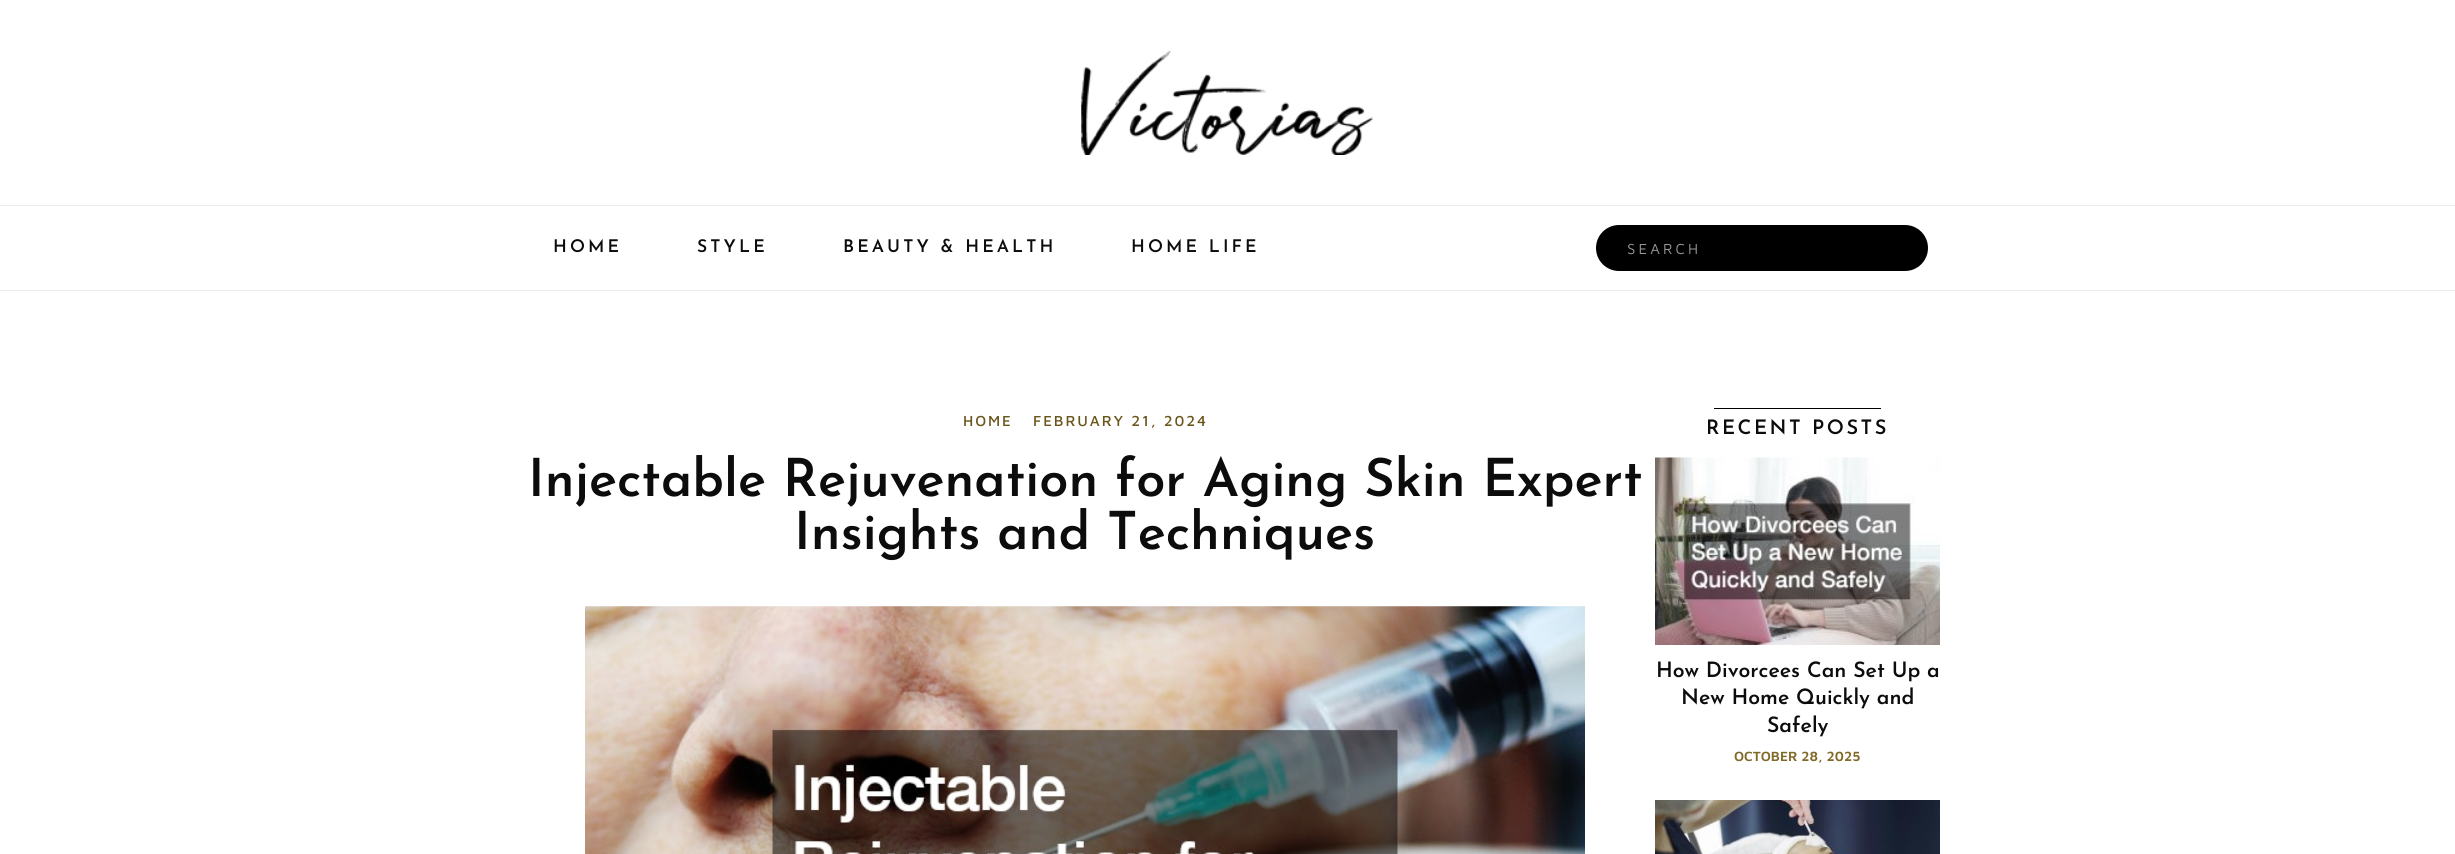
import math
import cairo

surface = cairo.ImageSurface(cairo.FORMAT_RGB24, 2455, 854)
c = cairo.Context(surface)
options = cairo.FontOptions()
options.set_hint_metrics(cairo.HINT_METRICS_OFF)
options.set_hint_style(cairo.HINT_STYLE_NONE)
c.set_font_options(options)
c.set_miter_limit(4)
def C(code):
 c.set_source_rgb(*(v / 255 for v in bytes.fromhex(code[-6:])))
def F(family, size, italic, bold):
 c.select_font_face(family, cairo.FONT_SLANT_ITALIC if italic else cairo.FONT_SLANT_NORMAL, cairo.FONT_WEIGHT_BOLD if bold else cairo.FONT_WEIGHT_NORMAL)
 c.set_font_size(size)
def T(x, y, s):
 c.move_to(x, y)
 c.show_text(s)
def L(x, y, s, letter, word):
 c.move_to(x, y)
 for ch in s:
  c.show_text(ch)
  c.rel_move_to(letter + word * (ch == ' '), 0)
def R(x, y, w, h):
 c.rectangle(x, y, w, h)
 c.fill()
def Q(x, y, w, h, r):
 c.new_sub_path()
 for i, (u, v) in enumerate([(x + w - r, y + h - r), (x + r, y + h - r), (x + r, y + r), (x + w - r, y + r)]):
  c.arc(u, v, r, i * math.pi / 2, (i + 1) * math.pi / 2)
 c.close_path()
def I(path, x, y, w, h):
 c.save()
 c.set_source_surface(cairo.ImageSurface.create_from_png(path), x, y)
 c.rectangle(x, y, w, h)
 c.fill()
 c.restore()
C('ffffff')
c.paint()
I('1.png',1081,51,292,104)
C('ebebeb')
R(0,205,2455,1)
R(0,290,2455,1)
F('Josefin Sans SemiBold',17.5,0,0)
C('0c0c0c')
L(553,252,'HOME',3.1,0)
L(697,252,'STYLE',3.1,0)
L(843,252,'BEAUTY & HEALTH',3.1,0)
L(1131,252,'HOME LIFE',3.1,0)
C('000000')
Q(1596,225,332,46,23)
c.fill()
F('Maven Pro',15,0,0)
C('999999')
L(1627,254,'SEARCH',3.1,0)
F('Maven Pro Medium',15,0,0)
C('6a551b')
L(963,426,'HOME',1.9,0)
L(1033,426,'FEBRUARY 21, 2024',1.9,0)
F('Josefin Sans SemiBold',52.5,0,0)
C('0c0c0c')
T(528,496,'Injectable Rejuvenation for Aging Skin Expert')
T(794,549,'Insights and Techniques')
I('2.png',585,606,1000,248)
C('000000')
R(1714,408,167,1)
F('Josefin Sans SemiBold',20,0,0)
C('0c0c0c')
L(1706,434,'RECENT POSTS',2.5,0)
I('3.png',1655,457,285,188)
F('Josefin Sans SemiBold',21.25,0,0)
T(1656,677,'How Divorcees Can Set Up a')
T(1681,704,'New Home Quickly and')
T(1767,732,'Safely')
F('Maven Pro SemiBold',13.75,0,0)
C('816928')
T(1734,761,'OCTOBER 28, 2025')
I('4.png',1655,800,285,54)
surface.write_to_png('o.png')
